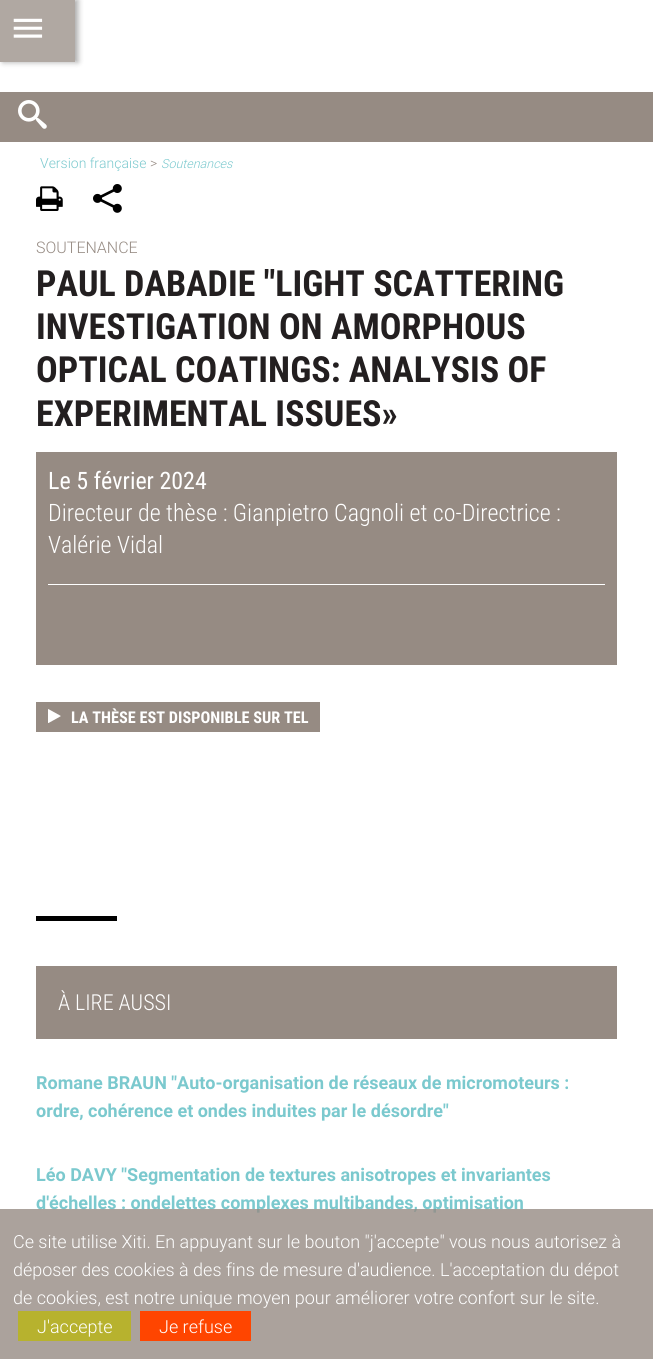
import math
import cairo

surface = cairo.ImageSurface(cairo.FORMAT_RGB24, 653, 1359)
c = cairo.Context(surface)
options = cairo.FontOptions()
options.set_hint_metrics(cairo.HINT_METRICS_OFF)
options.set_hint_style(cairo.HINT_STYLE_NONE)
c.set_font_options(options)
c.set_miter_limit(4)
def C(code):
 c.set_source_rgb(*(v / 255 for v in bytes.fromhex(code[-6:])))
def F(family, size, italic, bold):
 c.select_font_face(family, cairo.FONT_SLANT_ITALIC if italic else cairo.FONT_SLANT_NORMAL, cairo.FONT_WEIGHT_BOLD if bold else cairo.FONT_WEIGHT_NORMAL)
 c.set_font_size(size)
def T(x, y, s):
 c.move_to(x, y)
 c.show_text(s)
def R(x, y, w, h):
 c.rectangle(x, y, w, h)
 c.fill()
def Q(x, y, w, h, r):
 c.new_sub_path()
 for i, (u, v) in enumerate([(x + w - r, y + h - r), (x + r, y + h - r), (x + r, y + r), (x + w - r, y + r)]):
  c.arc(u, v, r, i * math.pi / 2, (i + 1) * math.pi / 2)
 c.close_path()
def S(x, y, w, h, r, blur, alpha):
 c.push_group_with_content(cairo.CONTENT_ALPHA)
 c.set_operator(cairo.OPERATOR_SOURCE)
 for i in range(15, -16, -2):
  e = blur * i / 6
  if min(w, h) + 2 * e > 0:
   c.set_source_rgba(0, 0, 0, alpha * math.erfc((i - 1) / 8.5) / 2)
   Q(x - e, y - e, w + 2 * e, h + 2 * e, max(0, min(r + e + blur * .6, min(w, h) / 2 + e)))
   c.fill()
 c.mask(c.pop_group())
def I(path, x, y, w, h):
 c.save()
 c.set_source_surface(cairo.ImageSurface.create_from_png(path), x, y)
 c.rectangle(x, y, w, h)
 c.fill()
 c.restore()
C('ffffff')
c.paint()
C('000000')
S(3,0,75,62,0,3,.34)
C('b0a8a2')
R(0,0,75,62)
I('1.png',13,18,30,20)
F('Roboto Light',14,0,0)
C('7bc9ce')
T(40,168,'Version française')
C('968b83')
T(150,168,'>')
F('Roboto Light',12.5,1,0)
C('7bc9ce')
T(161,168,'Soutenances')
I('2.png',36,186,27,25)
I('3.png',93,184,29,29)
F('Roboto Light',16,0,0)
C('968b83')
T(36,253,'SOUTENANCE')
F('Roboto Condensed',36,0,1)
C('231f20')
T(36,296,'PAUL DABADIE "LIGHT SCATTERING')
T(36,339,'INVESTIGATION ON AMORPHOUS')
T(36,382,'OPTICAL COATINGS: ANALYSIS OF')
T(36,426,'EXPERIMENTAL ISSUES»')
C('968b83')
R(36,452,581,213)
F('Roboto Condensed',24,0,0)
C('ffffff')
T(48,489,'Le 5 février 2024')
R(48,584,557,1)
F('Roboto Condensed Light',24,0,0)
T(48,521,'Directeur de thèse : Gianpietro Cagnoli et co-Directrice :')
T(48,553,'Valérie Vidal')
C('968b83')
R(36,702,284,30)
I('4.png',48,709,13,14)
F('Roboto Condensed',16.25,0,1)
C('ffffff')
T(71,723,'LA THÈSE EST DISPONIBLE SUR TEL')
C('000000')
R(36,916,81,5)
C('968b83')
R(36,966,581,73)
F('Roboto Condensed Light',22,0,0)
C('ffffff')
T(58,1010,'À LIRE AUSSI')
F('Roboto',18,0,1)
C('7bc9ce')
T(36,1089,'Romane BRAUN "Auto-organisation de réseaux de micromoteurs :')
T(36,1117,'ordre, cohérence et ondes induites par le désordre"')
T(36,1181,'Léo DAVY "Segmentation de textures anisotropes et invariantes')
T(36,1209,'d\'échelles : ondelettes complexes multibandes, optimisation')
C('968b83')
R(0,92,653,50)
I('5.png',18,100,29,29)
c.set_source_rgba(0.588,0.545,0.514,0.8)
R(0,1209,653,150)
F('Roboto Light',18,0,0)
C('ffffff')
T(13,1248,'Ce site utilise Xiti. En appuyant sur le bouton "j\'accepte" vous nous autorisez à')
T(13,1276,'déposer des cookies à des fins de mesure d\'audience. L\'acceptation du dépot')
T(13,1304,'de cookies, est notre unique moyen pour améliorer votre confort sur le site.')
C('b7b22e')
R(18,1311,113,30)
C('ffffff')
T(37,1333,'J\'accepte')
C('ff4500')
R(140,1311,111,30)
C('ffffff')
T(159,1333,'Je refuse')
surface.write_to_png('o.png')
